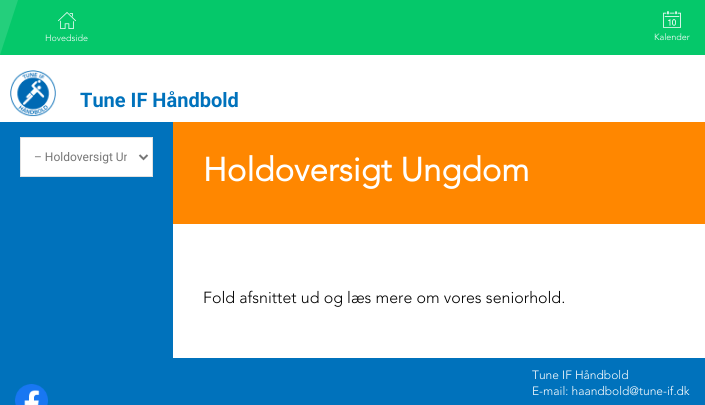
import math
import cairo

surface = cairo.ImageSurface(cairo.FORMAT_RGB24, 705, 405)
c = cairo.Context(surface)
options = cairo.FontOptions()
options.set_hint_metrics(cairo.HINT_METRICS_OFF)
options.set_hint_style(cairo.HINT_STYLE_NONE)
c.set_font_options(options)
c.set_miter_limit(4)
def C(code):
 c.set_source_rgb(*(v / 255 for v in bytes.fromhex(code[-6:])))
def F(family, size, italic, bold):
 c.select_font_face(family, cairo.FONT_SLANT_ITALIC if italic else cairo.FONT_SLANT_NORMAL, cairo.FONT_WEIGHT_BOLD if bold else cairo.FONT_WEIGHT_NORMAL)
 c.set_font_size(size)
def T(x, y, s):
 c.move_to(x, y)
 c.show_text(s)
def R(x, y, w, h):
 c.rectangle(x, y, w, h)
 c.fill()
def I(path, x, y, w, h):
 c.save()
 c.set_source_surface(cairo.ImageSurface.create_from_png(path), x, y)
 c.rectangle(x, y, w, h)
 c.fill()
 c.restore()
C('ffffff')
c.paint()
C('24cf7c')
R(0,0,18,55)
C('05c86a')
c.new_path()
c.move_to(18,0)
c.line_to(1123,0)
c.line_to(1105,55)
c.line_to(0,55)
c.close_path()
c.fill()
I('1.png',58,12,18,17)
F('Avenir Light',9,0,0)
C('ffffff')
T(45,41,'Hovedside')
I('2.png',663,11,18,17)
T(654,40,'Kalender')
I('3.png',10,70,46,47)
F('Roboto',20,0,1)
C('0072bc')
T(80,107,'Tune IF Håndbold')
R(0,122,173,236)
C('ffffff')
c.rectangle(20.5,137.5,132,39)
c.fill_preserve()
C('e1e1e1')
c.set_line_width(1)
c.stroke()
c.new_path()
c.move_to(139.5,155)
c.line_to(143.5,159)
c.line_to(147.5,155)
C('777777')
c.set_line_width(2)
c.stroke()
c.save()
c.rectangle(34,149,93,16)
c.clip()
F('Roboto',12,0,0)
T(34,161,'– Holdoversigt Un')
c.restore()
C('ff8700')
R(173,122,532,102)
F('Avenir',33,0,1)
C('ffffff')
T(203,181,'Holdoversigt Ungdom')
F('Avenir Light',16,0,0)
C('000000')
T(203,303,'Fold afsnittet ud og læs mere om vores seniorhold.')
C('0072bc')
R(0,358,705,47)
I('4.png',15,384,33,21)
F('Avenir Light',12,0,0)
C('ffffff')
T(532,379,'Tune IF Håndbold')
T(532,395,'E-mail: haandbold@tune-if.dk')
surface.write_to_png('o.png')
